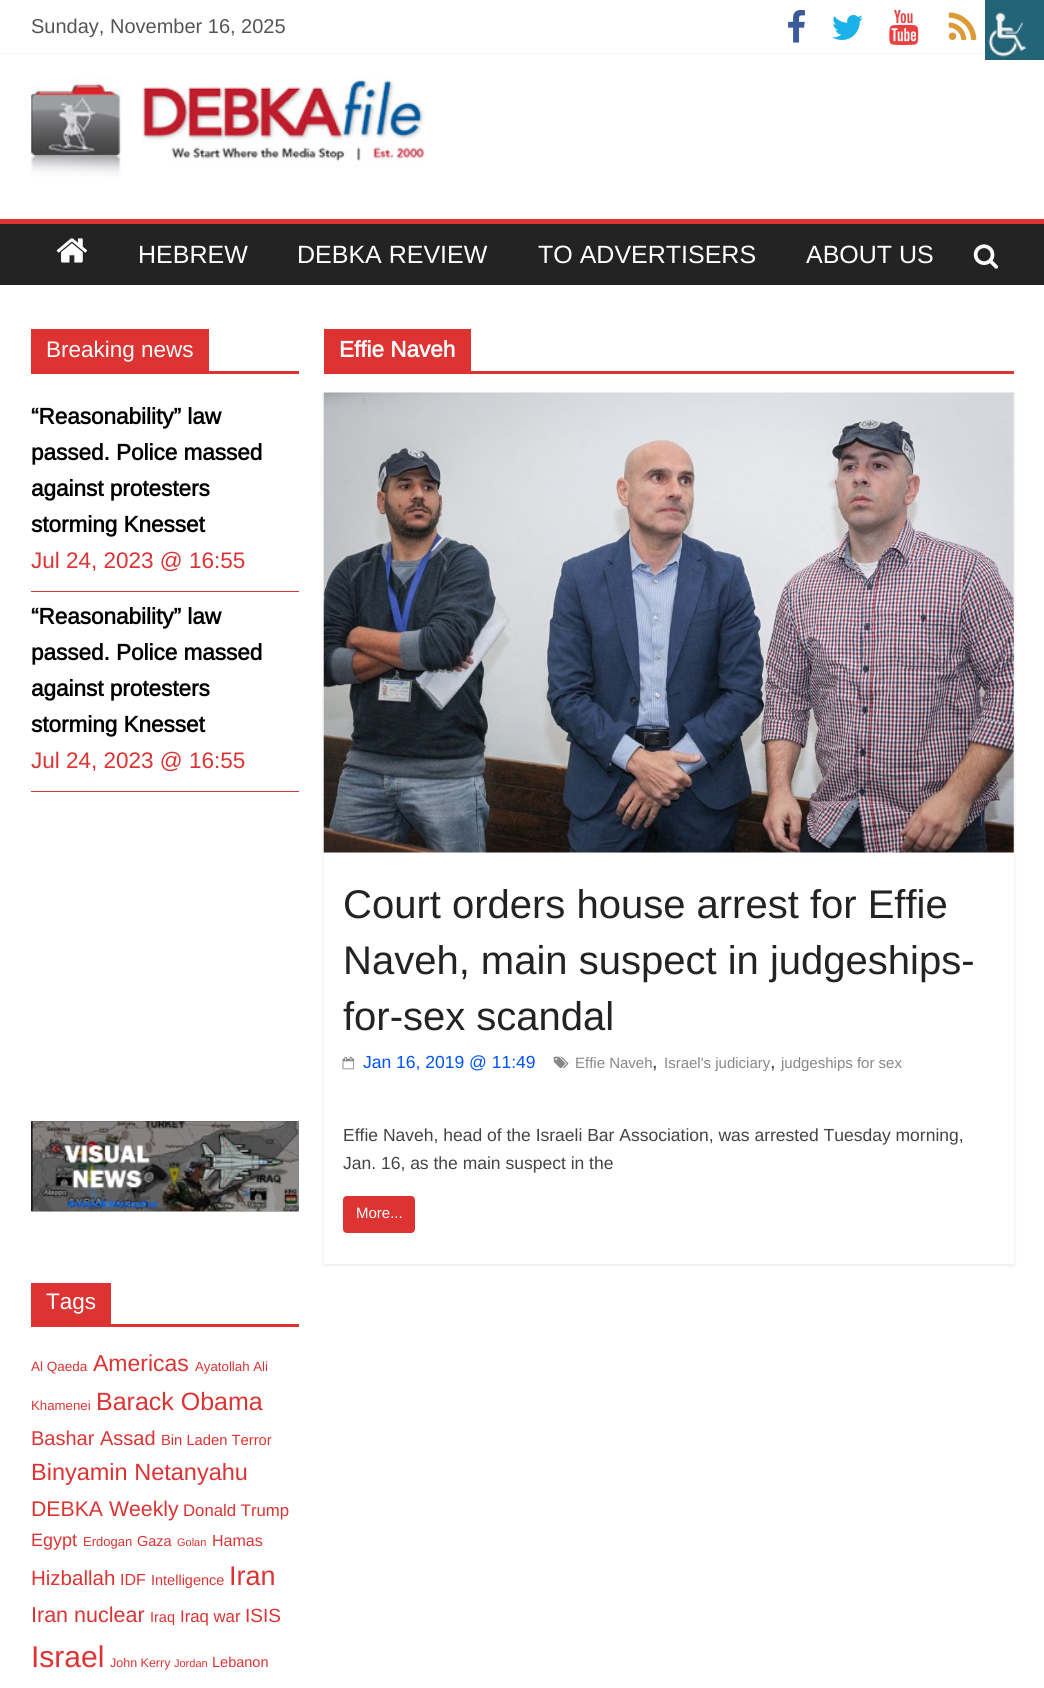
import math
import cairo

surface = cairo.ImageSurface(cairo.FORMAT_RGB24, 1044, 1688)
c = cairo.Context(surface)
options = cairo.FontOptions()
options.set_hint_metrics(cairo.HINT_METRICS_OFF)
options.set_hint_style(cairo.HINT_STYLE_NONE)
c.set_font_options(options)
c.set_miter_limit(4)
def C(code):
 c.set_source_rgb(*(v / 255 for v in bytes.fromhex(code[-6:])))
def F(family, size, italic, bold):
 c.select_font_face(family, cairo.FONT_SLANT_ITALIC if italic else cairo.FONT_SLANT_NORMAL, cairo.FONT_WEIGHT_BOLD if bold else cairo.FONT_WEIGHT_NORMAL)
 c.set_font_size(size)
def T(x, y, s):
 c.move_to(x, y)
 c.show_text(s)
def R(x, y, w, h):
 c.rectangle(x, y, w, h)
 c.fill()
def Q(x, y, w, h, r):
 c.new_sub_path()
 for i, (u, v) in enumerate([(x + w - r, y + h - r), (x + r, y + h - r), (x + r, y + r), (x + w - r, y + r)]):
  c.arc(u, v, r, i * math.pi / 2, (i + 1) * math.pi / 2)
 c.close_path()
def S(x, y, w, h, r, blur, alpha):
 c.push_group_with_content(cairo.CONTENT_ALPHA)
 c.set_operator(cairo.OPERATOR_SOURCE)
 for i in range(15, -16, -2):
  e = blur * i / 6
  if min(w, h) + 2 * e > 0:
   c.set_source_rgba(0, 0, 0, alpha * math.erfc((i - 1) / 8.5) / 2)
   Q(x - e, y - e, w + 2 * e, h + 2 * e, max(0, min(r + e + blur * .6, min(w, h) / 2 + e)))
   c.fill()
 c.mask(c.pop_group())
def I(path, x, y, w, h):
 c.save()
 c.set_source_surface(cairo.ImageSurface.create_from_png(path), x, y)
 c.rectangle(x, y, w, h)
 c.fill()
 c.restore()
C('ffffff')
c.paint()
C('000000')
S(0,0,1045,53,0,1,.1)
C('ffffff')
R(0,0,985,53)
F('Arimo',20,0,0)
C('555555')
T(31,33,'Sunday, November 16, 2025')
I('1.png',788,10,17,33)
I('2.png',832,15,31,25)
I('3.png',889,10,30,35)
I('4.png',948,12,29,28)
I('5.png',31,77,395,100)
C('232323')
R(0,224,1044,61)
C('dd3333')
R(0,219,1044,5)
I('6.png',56,238,32,25)
F('Arimo',25,0,0)
C('ffffff')
T(138,263,'HEBREW')
T(297,263,'DEBKA REVIEW')
T(538,263,'TO ADVERTISERS')
T(806,263,'ABOUT US')
I('7.png',973,244,26,25)
C('dd3333')
R(31,371,268,3)
R(31,329,178,42)
F('Arimo',22.5,0,0)
C('ffffff')
T(46,357,'Breaking news')
C('dd3333')
R(31,591,268,1)
F('Arimo',22.5,0,1)
C('000000')
T(31,424,'“Reasonability” law')
T(31,460,'passed. Police massed')
T(31,496,'against protesters')
T(31,532,'storming Knesset')
F('Arimo',22.5,0,0)
C('dd3333')
T(31,568,'Jul 24, 2023 @ 16:55')
R(31,791,268,1)
F('Arimo',22.5,0,1)
C('000000')
T(31,624,'“Reasonability” law')
T(31,660,'passed. Police massed')
T(31,696,'against protesters')
T(31,732,'storming Knesset')
F('Arimo',22.5,0,0)
C('dd3333')
T(31,768,'Jul 24, 2023 @ 16:55')
I('8.png',31,1121,268,91)
R(31,1324,268,3)
R(31,1283,80,41)
C('ffffff')
T(46,1309,'Tags')
F('Arimo',13.5,0,0)
C('dd3333')
T(31,1371,'Al Qaeda')
F('Arimo',23,0,0)
T(93,1371,'Americas')
F('Arimo',13.25,0,0)
T(195,1371,'Ayatollah Ali')
T(31,1410,'Khamenei')
F('Arimo',25,0,0)
T(96,1410,'Barack Obama')
F('Arimo',20,0,0)
T(31,1445,'Bashar Assad')
F('Arimo',14.75,0,0)
T(161,1445,'Bin Laden Terror')
F('Arimo',23.5,0,0)
T(31,1480,'Binyamin Netanyahu')
F('Arimo',21.25,0,0)
T(31,1516,'DEBKA Weekly')
F('Arimo',16.75,0,0)
T(183,1516,'Donald Trump')
F('Arimo',18,0,0)
T(31,1546,'Egypt')
F('Arimo',13,0,0)
T(83,1546,'Erdogan')
F('Arimo',14.5,0,0)
T(137,1546,'Gaza')
F('Arimo',11,0,0)
T(177,1546,'Golan')
F('Arimo',16,0,0)
T(212,1546,'Hamas')
F('Arimo',20.5,0,0)
T(31,1585,'Hizballah')
F('Arimo',16,0,0)
T(120,1585,'IDF')
F('Arimo',14.5,0,0)
T(151,1585,'Intelligence')
F('Arimo',27,0,0)
T(229,1585,'Iran')
F('Arimo',21.5,0,0)
T(31,1622,'Iran nuclear')
F('Arimo',14.5,0,0)
T(150,1622,'Iraq')
F('Arimo',16.75,0,0)
T(180,1622,'Iraq war')
F('Arimo',19,0,0)
T(245,1622,'ISIS')
F('Arimo',30,0,0)
T(31,1667,'Israel')
F('Arimo',12.5,0,0)
T(110,1667,'John Kerry')
F('Arimo',11,0,0)
T(174,1667,'Jordan')
F('Arimo',14.5,0,0)
T(212,1667,'Lebanon')
R(324,371,690,3)
R(324,329,147,42)
F('Arimo',22.5,0,1)
C('ffffff')
T(339,357,'Effie Naveh')
c.save()
c.set_fill_rule(cairo.FILL_RULE_EVEN_ODD)
c.new_path()
c.move_to(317,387)
c.line_to(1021,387)
c.line_to(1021,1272)
c.line_to(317,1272)
c.close_path()
c.move_to(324,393)
c.line_to(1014,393)
c.line_to(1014,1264)
c.line_to(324,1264)
c.close_path()
c.clip()
C('000000')
S(324,394,690,871,0,2,.1)
c.restore()
I('9.png',323,392,691,461)
F('Arimo',40,0,0)
C('232323')
T(343,918,'Court orders house arrest for Effie')
T(343,974,'Naveh, main suspect in judgeships-')
T(343,1030,'for-sex scandal')
I('10.png',342,1056,13,14)
F('Arimo',17.5,0,0)
C('0053f9')
T(363,1068,'Jan 16, 2019 @ 11:49')
I('11.png',553,1056,16,13)
F('Arimo',15,0,0)
C('888888')
T(575,1068,'Effie Naveh')
F('Arimo',20,0,0)
C('444444')
T(652,1068,',')
F('Arimo',15,0,0)
C('888888')
T(664,1068,'Israel\'s judiciary')
F('Arimo',20,0,0)
C('444444')
T(770,1068,',')
F('Arimo',15,0,0)
C('888888')
T(781,1068,'judgeships for sex')
F('Arimo',17.5,0,0)
C('444444')
T(343,1141,'Effie Naveh, head of the Israeli Bar Association, was arrested Tuesday morning,')
T(343,1169,'Jan. 16, as the main suspect in the')
C('dd3333')
Q(343,1196,72,37,4)
c.fill()
F('Arimo',15,0,0)
C('ffffff')
T(356,1218,'More...')
I('12.png',985,0,59,60)
surface.write_to_png('o.png')
